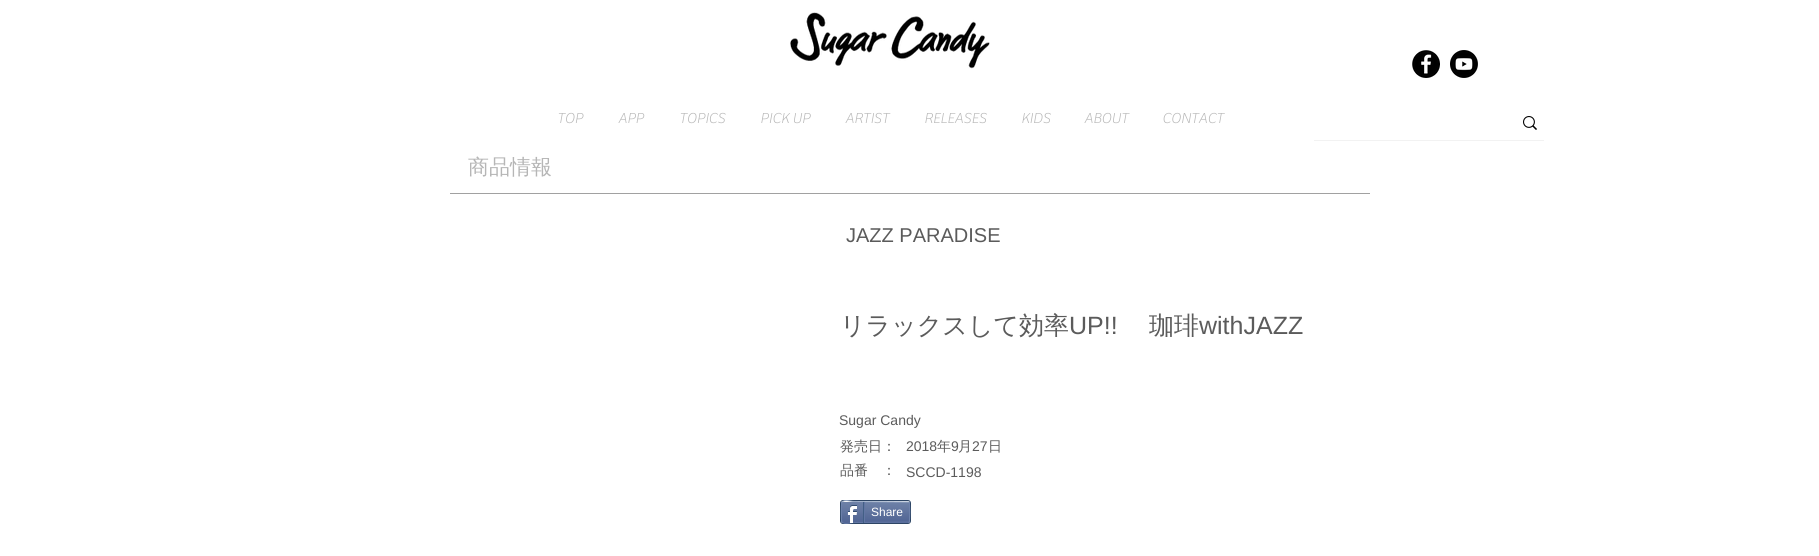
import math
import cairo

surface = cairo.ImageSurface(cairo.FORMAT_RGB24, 1819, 556)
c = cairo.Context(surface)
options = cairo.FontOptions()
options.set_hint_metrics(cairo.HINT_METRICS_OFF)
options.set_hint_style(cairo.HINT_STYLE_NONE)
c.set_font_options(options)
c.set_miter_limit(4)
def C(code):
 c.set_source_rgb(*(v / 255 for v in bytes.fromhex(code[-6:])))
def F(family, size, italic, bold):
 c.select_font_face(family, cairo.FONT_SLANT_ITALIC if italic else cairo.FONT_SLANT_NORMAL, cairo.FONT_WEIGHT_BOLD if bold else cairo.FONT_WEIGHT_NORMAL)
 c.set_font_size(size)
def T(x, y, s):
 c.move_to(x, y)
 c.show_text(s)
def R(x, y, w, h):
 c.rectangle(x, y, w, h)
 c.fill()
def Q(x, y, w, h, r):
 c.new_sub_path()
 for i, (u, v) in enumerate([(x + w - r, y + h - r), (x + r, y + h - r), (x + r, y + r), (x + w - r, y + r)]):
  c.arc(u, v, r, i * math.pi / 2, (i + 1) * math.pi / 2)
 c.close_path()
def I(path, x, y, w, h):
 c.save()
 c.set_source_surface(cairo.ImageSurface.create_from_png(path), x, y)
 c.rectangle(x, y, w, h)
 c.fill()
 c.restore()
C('ffffff')
c.paint()
I('1.png',790,12,200,57)
I('2.png',1412,50,28,28)
I('3.png',1450,50,28,28)
F('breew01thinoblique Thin',15,0,0)
C('b6b6b6')
T(557,123,'TOP')
T(618,123,'APP')
T(679,123,'TOPICS')
T(760,123,'PICK UP')
T(845,123,'ARTIST')
T(924,123,'RELEASES')
T(1021,123,'KIDS')
T(1084,123,'ABOUT')
T(1162,123,'CONTACT')
C('f2f2f2')
R(1314,140,230,1)
I('4.png',1523,116,14,14)
F('WenQuanYi Zen Hei Medium',21,0,0)
C('b6b6b6')
T(468,174,'商品情報')
C('a1a1a1')
R(450,193,920,1)
F('Liberation Sans',20,0,0)
C('5b5b5b')
T(846,242,'JAZZ PARADISE')
F('WenQuanYi Zen Hei Medium',25,0,0)
T(840,334,'リラックスして効率')
F('Liberation Sans',25,0,0)
T(1069,334,'UP!!')
F('WenQuanYi Zen Hei Medium',25,0,0)
T(1149,334,'珈琲')
F('Liberation Sans',25,0,0)
T(1199,334,'withJAZZ')
F('Liberation Sans',14,0,0)
T(839,425,'Sugar Candy')
F('WenQuanYi Zen Hei Medium',14,0,0)
T(840,451,'発売日：')
F('Liberation Sans',14,0,0)
T(906,451,'2018')
F('WenQuanYi Zen Hei Medium',14,0,0)
T(937,451,'年')
F('Liberation Sans',14,0,0)
T(951,451,'9')
F('WenQuanYi Zen Hei Medium',14,0,0)
T(958,451,'月')
F('Liberation Sans',14,0,0)
T(972,451,'27')
F('WenQuanYi Zen Hei Medium',14,0,0)
T(988,451,'日')
T(840,475,'品番　：')
F('Liberation Sans',14,0,0)
T(906,477,'SCCD-1198')
Q(840.5,500.5,70,23,2.5)
C('2d4565')
c.set_line_width(1)
c.stroke()
I('5.png',841,502,69,21)
c.new_path()
c.move_to(842,502)
c.curve_to(845,499,850,501.5,854,501.5)
c.line_to(909,502)
C('9aabc6')
c.stroke()
c.new_path()
c.move_to(909,502)
c.curve_to(910,502.5,910,521.5,909,522)
C('6f83ad')
c.stroke()
c.new_path()
c.move_to(909,522)
c.line_to(854,522.5)
c.curve_to(850,522.5,845,525,842,522)
C('6176a3')
c.stroke()
c.new_path()
c.move_to(842,522)
c.curve_to(841,521.5,841,502.5,842,502)
C('6f83ad')
c.stroke()
I('6.png',847,505,10,18)
C('425e85')
R(863,502,1,21)
F('Liberation Sans',12,0,0)
C('ffffff')
T(871,516,'Share')
C('6176a3')
R(864,502,1,20)
surface.write_to_png('o.png')
